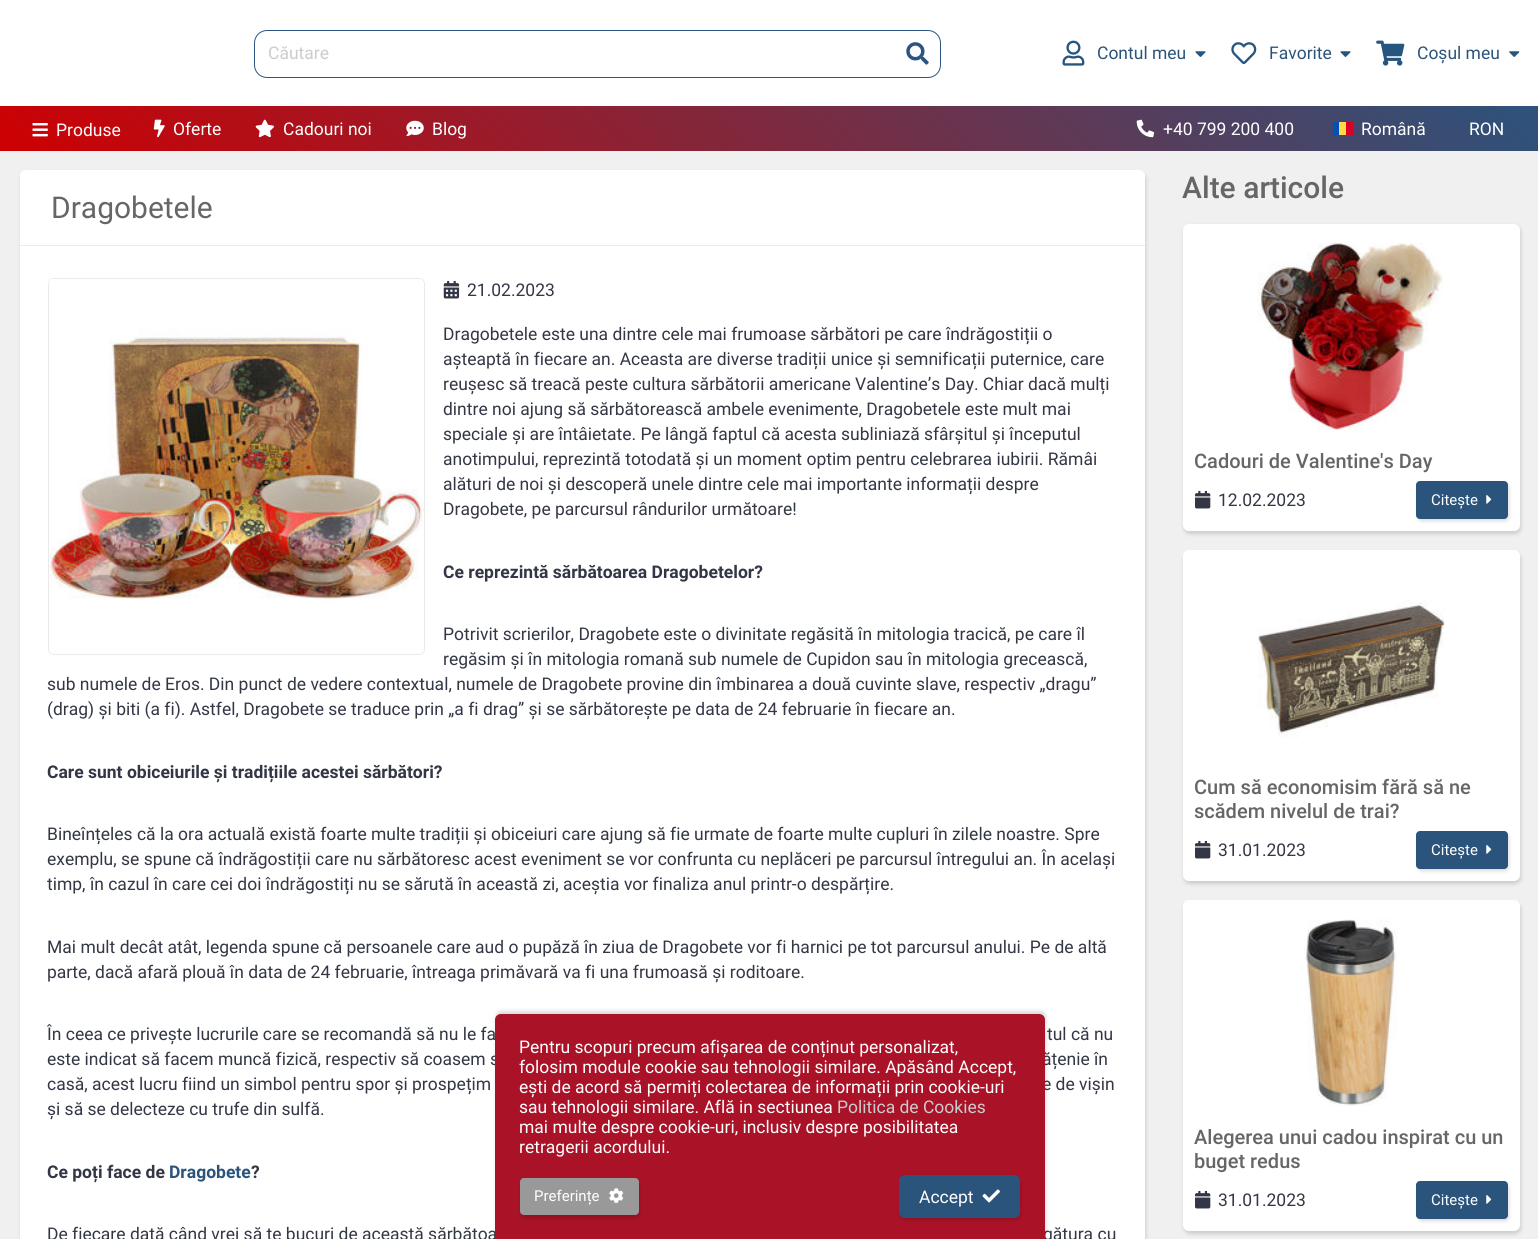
import math
import cairo

surface = cairo.ImageSurface(cairo.FORMAT_RGB24, 1538, 1239)
c = cairo.Context(surface)
options = cairo.FontOptions()
options.set_hint_metrics(cairo.HINT_METRICS_OFF)
options.set_hint_style(cairo.HINT_STYLE_NONE)
c.set_font_options(options)
c.set_miter_limit(4)
def C(code):
 c.set_source_rgb(*(v / 255 for v in bytes.fromhex(code[-6:])))
def F(family, size, italic, bold):
 c.select_font_face(family, cairo.FONT_SLANT_ITALIC if italic else cairo.FONT_SLANT_NORMAL, cairo.FONT_WEIGHT_BOLD if bold else cairo.FONT_WEIGHT_NORMAL)
 c.set_font_size(size)
def T(x, y, s):
 c.move_to(x, y)
 c.show_text(s)
def R(x, y, w, h):
 c.rectangle(x, y, w, h)
 c.fill()
def Q(x, y, w, h, r):
 c.new_sub_path()
 for i, (u, v) in enumerate([(x + w - r, y + h - r), (x + r, y + h - r), (x + r, y + r), (x + w - r, y + r)]):
  c.arc(u, v, r, i * math.pi / 2, (i + 1) * math.pi / 2)
 c.close_path()
def S(x, y, w, h, r, blur, alpha):
 c.push_group_with_content(cairo.CONTENT_ALPHA)
 c.set_operator(cairo.OPERATOR_SOURCE)
 for i in range(15, -16, -2):
  e = blur * i / 6
  if min(w, h) + 2 * e > 0:
   c.set_source_rgba(0, 0, 0, alpha * math.erfc((i - 1) / 8.5) / 2)
   Q(x - e, y - e, w + 2 * e, h + 2 * e, max(0, min(r + e + blur * .6, min(w, h) / 2 + e)))
   c.fill()
 c.mask(c.pop_group())
def I(path, x, y, w, h):
 c.save()
 c.set_source_surface(cairo.ImageSurface.create_from_png(path), x, y)
 c.rectangle(x, y, w, h)
 c.fill()
 c.restore()
C('f0f0f0')
c.paint()
C('ffffff')
R(0,0,1538,106)
Q(254.5,30.5,686,47,12.5)
C('2b5482')
c.set_line_width(1)
c.stroke()
F('Roboto',17.5,0,0)
C('cccccc')
T(268,59,'Căutare')
I('1.png',906,42,23,23)
I('2.png',1062,40,23,26)
C('2a547c')
T(1097,59,'Contul meu')
I('3.png',1195,51,11,6)
I('4.png',1231,42,26,22)
T(1269,59,'Favorite')
I('3.png',1340,51,11,6)
I('5.png',1376,40,29,26)
T(1417,59,'Coșul meu')
I('6.png',1509,51,11,6)
gradient = cairo.LinearGradient(373,525,1165,-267)
gradient.add_color_stop_rgba(0,0.808,0,0.008,1)
gradient.add_color_stop_rgba(1,0.173,0.325,0.486,1)
c.set_source(gradient)
R(0,106,1538,45)
I('7.png',32,123,16,14)
C('ffffff')
T(56,136,'Produse')
I('8.png',153,119,12,19)
T(173,135,'Oferte')
I('9.png',255,119,19,19)
T(283,135,'Cadouri noi')
I('10.png',406,120,18,17)
T(432,135,'Blog')
I('11.png',1136,119,19,19)
T(1163,135,'+40 799 200 400')
C('ffda44')
R(1339,122,7,13)
C('0052b4')
R(1333,122,6,13)
C('d80027')
R(1346,122,7,13)
C('ffffff')
T(1361,135,'Română')
T(1469,135,'RON')
C('000000')
S(21,173,1125,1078,6,2,.15)
C('ffffff')
Q(20,170,1125,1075,6)
c.fill()
C('eaeaea')
R(20,245,1125,1)
F('Roboto',30,0,0)
C('666666')
T(51,218,'Dragobetele')
Q(48.5,278.5,376,376,5.5)
C('eaeaea')
c.stroke()
I('12.png',49,279,375,374)
I('13.png',443,280,17,19)
F('Roboto',17.5,0,0)
C('333745')
T(467,296,'21.02.2023')
T(443,340,'Dragobetele este una dintre cele mai frumoase sărbători pe care îndrăgostiții o')
T(443,365,'așteaptă în fiecare an. Aceasta are diverse tradiții unice și semnificații puternice, care')
T(443,390,'reușesc să treacă peste cultura sărbătorii americane Valentine’s Day. Chiar dacă mulți')
T(443,415,'dintre noi ajung să sărbătorească ambele evenimente, Dragobetele este mult mai')
T(443,440,'speciale și are întâietate. Pe lângă faptul că acesta subliniază sfârșitul și începutul')
T(443,465,'anotimpului, reprezintă totodată și un moment optim pentru celebrarea iubirii. Rămâi')
T(443,490,'alături de noi și descoperă unele dintre cele mai importante informații despre')
T(443,515,'Dragobete, pe parcursul rândurilor următoare!')
F('Roboto',17.5,0,1)
T(443,578,'Ce reprezintă sărbătoarea Dragobetelor?')
F('Roboto',17.5,0,0)
T(443,640,'Potrivit scrierilor, Dragobete este o divinitate regăsită în mitologia tracică, pe care îl')
T(443,665,'regăsim și în mitologia romană sub numele de Cupidon sau în mitologia grecească,')
T(47,690,'sub numele de Eros. Din punct de vedere contextual, numele de Dragobete provine din îmbinarea a două cuvinte slave, respectiv „dragu”')
T(47,715,'(drag) și biti (a fi). Astfel, Dragobete se traduce prin „a fi drag” și se sărbătorește pe data de 24 februarie în fiecare an.')
F('Roboto',17.5,0,1)
T(47,778,'Care sunt obiceiurile și tradițiile acestei sărbători?')
F('Roboto',17.5,0,0)
T(47,840,'Bineînțeles că la ora actuală există foarte multe tradiții și obiceiuri care ajung să fie urmate de foarte multe cupluri în zilele noastre. Spre')
T(47,865,'exemplu, se spune că îndrăgostiții care nu sărbătoresc acest eveniment se vor confrunta cu neplăceri pe parcursul întregului an. În același')
T(47,890,'timp, în cazul în care cei doi îndrăgostiți nu se sărută în această zi, aceștia vor finaliza anul printr-o despărțire.')
T(47,953,'Mai mult decât atât, legenda spune că persoanele care aud o pupăză în ziua de Dragobete vor fi harnici pe tot parcursul anului. Pe de altă')
T(47,978,'parte, dacă afară plouă în data de 24 februarie, întreaga primăvară va fi una frumoasă și roditoare.')
T(47,1040,'În ceea ce privește lucrurile care se recomandă să nu le fa')
T(1047,1040,'tul că nu')
T(47,1065,'este indicat să facem muncă fizică, respectiv să coasem s')
T(1042,1065,'ățenie în')
T(47,1090,'casă, acest lucru fiind un simbol pentru spor și prospețim')
T(1042,1090,'e de vișin')
T(47,1115,'și să se delecteze cu trufe din sulfă.')
F('Roboto',17.5,0,1)
T(47,1178,'Ce poți face de')
C('2a547c')
T(169,1178,'Dragobete')
C('333745')
T(251,1178,'?')
F('Roboto',17.5,0,0)
T(47,1240,'De fiecare dată când vrei să te bucuri de această sărbătoa')
T(1043,1240,'gătura cu')
F('Roboto Medium',30,0,0)
C('666666')
T(1182,198,'Alte articole')
C('000000')
S(1184,226,337,308,6,2,.15)
C('ffffff')
Q(1183,224,337,307,6)
c.fill()
I('14.png',1257,242,186,188)
F('Roboto Medium',20,0,0)
C('666666')
T(1194,468,'Cadouri de Valentine\'s Day')
I('15.png',1195,490,16,19)
F('Roboto',17.5,0,0)
C('333745')
T(1218,506,'12.02.2023')
C('000000')
S(1418,484,91,37,4,2,.15)
C('2a547c')
Q(1416,481,92,38,4)
c.fill()
F('Roboto',15,0,0)
C('ffffff')
T(1431,505,'Citește')
I('16.png',1486,495,6,9)
C('000000')
S(1184,553,337,331,6,2,.15)
C('ffffff')
Q(1183,550,337,331,6)
c.fill()
I('17.png',1257,599,188,140)
F('Roboto Medium',20,0,0)
C('666666')
T(1194,794,'Cum să economisim fără să ne')
T(1194,818,'scădem nivelul de trai?')
I('15.png',1195,840,16,19)
F('Roboto',17.5,0,0)
C('333745')
T(1218,856,'31.01.2023')
C('000000')
S(1418,834,91,37,4,2,.15)
C('2a547c')
Q(1416,831,92,38,4)
c.fill()
F('Roboto',15,0,0)
C('ffffff')
T(1431,855,'Citește')
I('16.png',1486,845,6,9)
C('000000')
S(1184,903,337,331,6,2,.15)
C('ffffff')
Q(1183,900,337,331,6)
c.fill()
I('18.png',1304,919,94,187)
F('Roboto Medium',20,0,0)
C('666666')
T(1194,1144,'Alegerea unui cadou inspirat cu un')
T(1194,1168,'buget redus')
I('15.png',1195,1190,16,19)
F('Roboto',17.5,0,0)
C('333745')
T(1218,1206,'31.01.2023')
C('000000')
S(1418,1184,91,37,4,2,.15)
C('2a547c')
Q(1416,1181,92,38,4)
c.fill()
F('Roboto',15,0,0)
C('ffffff')
T(1431,1205,'Citește')
I('16.png',1486,1195,6,9)
C('000000')
S(496,1011,550,227,6,2,.15)
C('aa1228')
c.new_path()
c.move_to(501,1014)
c.line_to(1039,1014)
c.curve_to(1042.5,1014,1045,1016.5,1045,1020)
c.line_to(1045,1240)
c.line_to(495,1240)
c.line_to(495,1020)
c.curve_to(495,1016.5,497.5,1014,501,1014)
c.close_path()
c.fill()
F('Roboto',17.5,0,0)
C('ffffff')
T(519,1053,'Pentru scopuri precum afișarea de conținut personalizat,')
T(519,1073,'folosim module cookie sau tehnologii similare. Apăsând Accept,')
T(519,1093,'ești de acord să permiți colectarea de informații prin cookie-uri')
T(519,1113,'sau tehnologii similare. Află in sectiunea')
C('cccccc')
T(837,1113,'Politica de Cookies')
C('ffffff')
T(519,1133,'mai multe despre cookie-uri, inclusiv despre posibilitatea')
T(519,1153,'retragerii acordului.')
C('000000')
S(521,1180,119,38,4,2,.15)
C('999999')
Q(520,1178,119,37,4)
c.fill()
F('Roboto',15,0,0)
C('ffffff')
T(534,1201,'Preferințe')
I('19.png',609,1188,15,15)
C('000000')
S(900,1178,121,42,6,2,.15)
C('2a547c')
Q(899,1175,121,43,6)
c.fill()
F('Roboto',17.5,0,0)
C('ffffff')
T(919,1203,'Accept')
I('20.png',982,1189,18,14)
surface.write_to_png('o.png')
